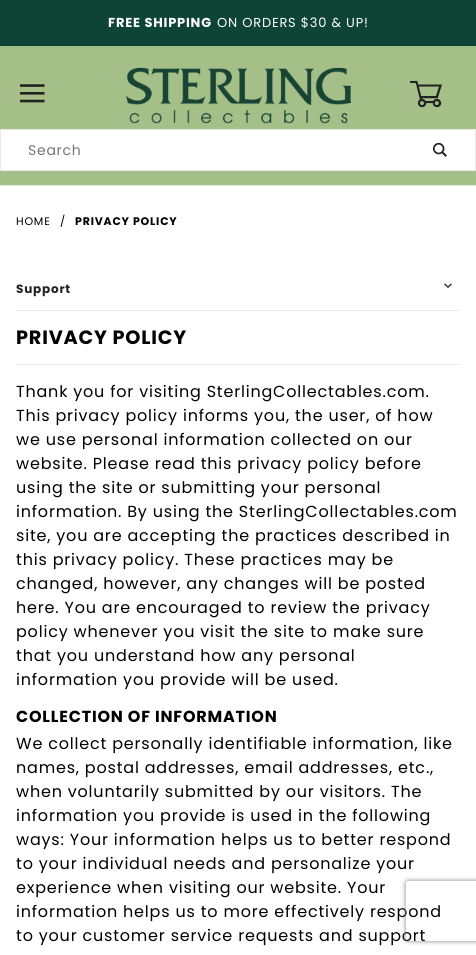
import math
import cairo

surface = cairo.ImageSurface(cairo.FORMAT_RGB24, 476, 955)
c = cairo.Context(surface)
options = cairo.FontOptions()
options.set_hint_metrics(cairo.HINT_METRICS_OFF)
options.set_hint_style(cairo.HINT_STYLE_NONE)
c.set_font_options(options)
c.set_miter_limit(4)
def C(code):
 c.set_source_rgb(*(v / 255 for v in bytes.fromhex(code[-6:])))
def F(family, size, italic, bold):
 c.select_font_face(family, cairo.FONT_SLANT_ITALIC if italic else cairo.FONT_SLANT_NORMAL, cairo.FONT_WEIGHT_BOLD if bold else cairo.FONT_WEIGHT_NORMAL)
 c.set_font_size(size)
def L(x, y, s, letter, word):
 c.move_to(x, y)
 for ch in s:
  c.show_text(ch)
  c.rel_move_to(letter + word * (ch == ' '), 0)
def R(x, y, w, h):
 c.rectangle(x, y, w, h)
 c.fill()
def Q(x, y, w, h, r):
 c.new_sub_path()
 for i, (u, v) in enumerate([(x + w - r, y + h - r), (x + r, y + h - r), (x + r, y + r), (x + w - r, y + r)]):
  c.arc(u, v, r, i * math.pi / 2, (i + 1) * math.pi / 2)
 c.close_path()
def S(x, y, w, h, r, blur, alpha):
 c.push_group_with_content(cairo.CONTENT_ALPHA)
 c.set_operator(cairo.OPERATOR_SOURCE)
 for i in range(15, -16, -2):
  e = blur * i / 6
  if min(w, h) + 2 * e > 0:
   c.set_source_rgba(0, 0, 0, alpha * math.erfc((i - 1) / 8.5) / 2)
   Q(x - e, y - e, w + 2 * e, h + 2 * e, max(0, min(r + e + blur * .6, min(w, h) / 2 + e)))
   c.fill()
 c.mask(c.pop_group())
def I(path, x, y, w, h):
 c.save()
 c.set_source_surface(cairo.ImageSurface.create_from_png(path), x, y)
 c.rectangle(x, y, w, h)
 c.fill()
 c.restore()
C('ffffff')
c.paint()
C('a4bf88')
R(0,46,476,139)
C('eaeaea')
R(0,185,476,1)
C('0e4436')
R(0,0,476,46)
F('Poppins',13,0,1)
C('ffffff')
L(108,27,'FREE SHIPPING',.8,0)
F('Poppins',13,0,0)
L(217,27,'ON ORDERS $30 & UP!',.8,0)
I('1.png',20,84,25,19)
I('2.png',126,67,225,57)
I('3.png',410,80,32,28)
c.rectangle(.5,129.5,475,41)
c.fill_preserve()
C('eaeaea')
c.set_line_width(1)
c.stroke()
F('Poppins',14,0,0)
C('757575')
L(28,155,'Search',.75,0)
I('4.png',433,142,14,15)
F('Poppins',11,0,0)
C('000000')
L(16,225,'HOME',.8,0)
L(60,225,'/',.8,0)
F('Poppins',11,0,1)
L(75,225,'PRIVACY POLICY',.8,0)
C('eaeaea')
R(16,310,444,1)
F('Poppins',12,0,1)
C('222222')
L(16,293,'Support',.8,0)
F('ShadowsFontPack',8,0,0)
L(444,289,'1',.8,0)
F('Poppins',19.25,0,1)
C('000000')
L(16,344,'PRIVACY POLICY',.8,0)
C('eaeaea')
R(16,364,444,1)
F('Poppins',16,0,0)
C('000000')
L(16,397,'Thank you for visiting SterlingCollectables.com.',.8,0)
L(16,421,'This privacy policy informs you, the user, of how',.8,0)
L(16,445,'we use personal information collected on our',.8,0)
L(16,469,'website. Please read this privacy policy before',.8,0)
L(16,493,'using the site or submitting your personal',.8,0)
L(16,517,'information. By using the SterlingCollectables.com',.8,0)
L(16,541,'site, you are accepting the practices described in',.8,0)
L(16,565,'this privacy policy. These practices may be',.8,0)
L(16,589,'changed, however, any changes will be posted',.8,0)
L(16,613,'here. You are encouraged to review the privacy',.8,0)
L(16,637,'policy whenever you visit the site to make sure',.8,0)
L(16,661,'that you understand how any personal',.8,0)
L(16,685,'information you provide will be used.',.8,0)
F('Poppins',16,0,1)
L(16,722,'COLLECTION OF INFORMATION',.8,0)
F('Poppins',16,0,0)
L(16,749,'We collect personally identifiable information, like',.8,0)
L(16,773,'names, postal addresses, email addresses, etc.,',.8,0)
L(16,797,'when voluntarily submitted by our visitors. The',.8,0)
L(16,821,'information you provide is used in the following',.8,0)
L(16,845,'ways: Your information helps us to better respond',.8,0)
L(16,869,'to your individual needs and personalize your',.8,0)
L(16,893,'experience when visiting our website. Your',.8,0)
L(16,917,'information helps us to more effectively respond',.8,0)
L(16,941,'to your customer service requests and support',.8,0)
c.save()
c.set_fill_rule(cairo.FILL_RULE_EVEN_ODD)
c.new_path()
c.move_to(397,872)
c.line_to(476,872)
c.line_to(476,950)
c.line_to(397,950)
c.close_path()
c.move_to(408,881)
c.line_to(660,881)
c.curve_to(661,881,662,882,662,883)
c.line_to(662,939)
c.curve_to(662,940,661,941,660,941)
c.line_to(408,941)
c.curve_to(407,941,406,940,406,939)
c.line_to(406,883)
c.curve_to(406,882,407,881,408,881)
c.close_path()
c.clip()
C('808080')
S(406,881,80,60,2,2.5,1)
c.restore()
surface.write_to_png('o.png')
